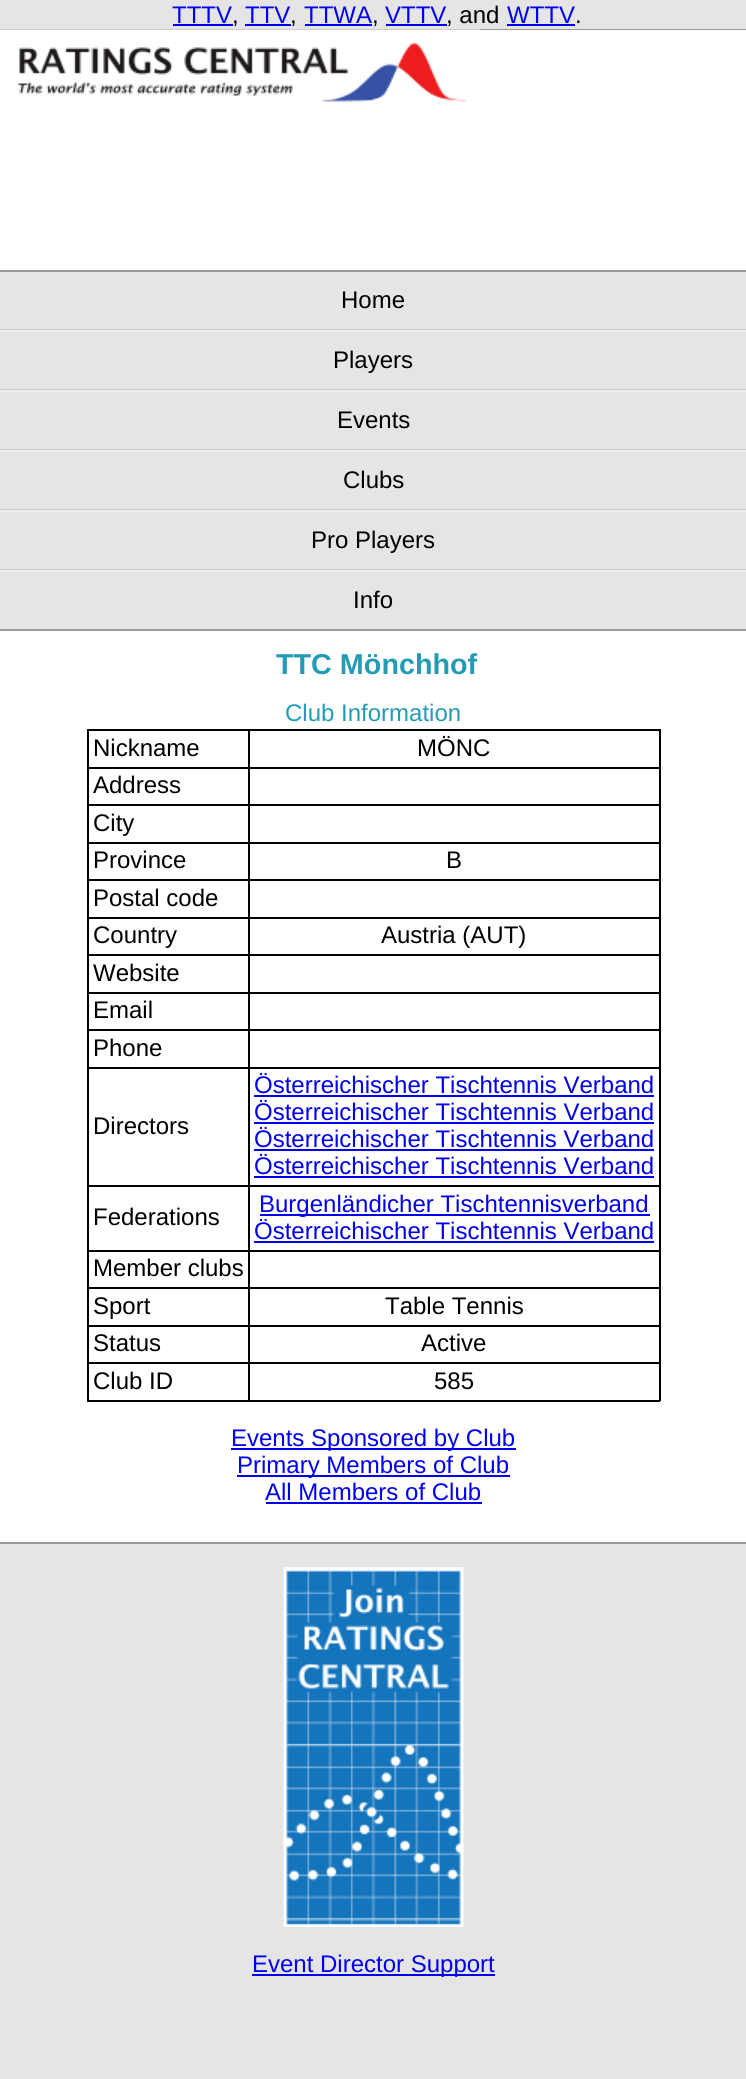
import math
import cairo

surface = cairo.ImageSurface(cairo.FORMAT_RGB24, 746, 2079)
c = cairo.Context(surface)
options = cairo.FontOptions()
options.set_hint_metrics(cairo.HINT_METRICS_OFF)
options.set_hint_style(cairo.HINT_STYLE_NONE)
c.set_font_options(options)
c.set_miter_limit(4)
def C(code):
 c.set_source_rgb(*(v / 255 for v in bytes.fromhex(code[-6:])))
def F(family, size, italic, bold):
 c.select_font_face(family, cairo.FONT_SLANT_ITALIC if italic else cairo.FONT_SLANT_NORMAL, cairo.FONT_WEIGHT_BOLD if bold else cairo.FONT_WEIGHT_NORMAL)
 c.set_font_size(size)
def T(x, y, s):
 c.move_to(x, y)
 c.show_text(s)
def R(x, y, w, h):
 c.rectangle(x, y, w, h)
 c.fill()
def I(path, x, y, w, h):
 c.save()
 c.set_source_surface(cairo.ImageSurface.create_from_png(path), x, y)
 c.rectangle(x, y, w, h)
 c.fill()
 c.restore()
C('e5e5e5')
c.paint()
C('999999')
R(0,29,746,1)
F('Liberation Sans',24,0,0)
C('0000ee')
T(172,23,'TTTV')
R(173,24,60,2)
C('000000')
T(232,23,',')
C('0000ee')
T(245,23,'TTV')
R(245,24,46,2)
C('000000')
T(290,23,',')
C('0000ee')
T(304,23,'TTWA')
R(305,24,67,2)
C('000000')
T(372,23,',')
C('0000ee')
T(385,23,'VTTV')
R(386,24,61,2)
C('000000')
T(446,23,', and')
C('0000ee')
T(507,23,'WTTV')
R(507,24,68,2)
C('000000')
T(575,23,'.')
C('ffffff')
R(0,30,746,240)
C('999999')
R(0,270,746,2)
I('1.png',0,29,480,73)
C('cecece')
R(0,329,746,1)
C('000000')
T(341,308,'Home')
C('ededed')
R(0,330,746,2)
C('cecece')
R(0,389,746,1)
C('000000')
T(333,368,'Players')
C('ededed')
R(0,390,746,2)
C('cecece')
R(0,449,746,1)
C('000000')
T(337,428,'Events')
C('ededed')
R(0,450,746,2)
C('cecece')
R(0,509,746,1)
C('000000')
T(343,488,'Clubs')
C('ededed')
R(0,510,746,2)
C('cecece')
R(0,569,746,1)
C('000000')
T(311,548,'Pro Players')
C('ededed')
R(0,570,746,2)
C('000000')
T(353,608,'Info')
C('ffffff')
R(0,631,746,911)
C('999999')
R(0,629,746,2)
F('Liberation Sans',28.75,0,1)
C('249bb5')
T(276,674,'TTC Mönchhof')
F('Liberation Sans',24,0,0)
T(285,721,'Club Information')
C('000000')
R(248,729,412,2)
R(248,767,412,2)
R(248,804,412,2)
R(248,842,412,2)
R(248,879,412,2)
R(248,917,412,2)
R(248,954,412,2)
R(248,992,412,2)
R(248,1029,412,2)
R(248,1067,412,2)
R(248,1185,412,2)
R(248,1250,412,2)
R(248,1287,412,2)
R(248,1325,412,2)
R(248,1362,412,2)
R(659,1362,2,39)
R(248,1400,412,2)
R(248,1362,2,39)
R(87,1362,162,2)
R(248,1325,2,39)
R(87,1325,162,2)
R(248,1287,2,39)
R(87,1287,162,2)
R(248,1250,2,39)
R(87,1250,162,2)
R(248,1185,2,66)
R(87,1185,162,2)
R(248,1067,2,120)
R(87,1067,162,2)
R(248,1029,2,39)
R(87,1029,162,2)
R(248,992,2,39)
R(87,992,162,2)
R(248,954,2,39)
R(87,954,162,2)
R(248,917,2,39)
R(87,917,162,2)
R(248,879,2,39)
R(87,879,162,2)
R(248,842,2,39)
R(87,842,162,2)
R(248,804,2,39)
R(87,804,162,2)
R(248,767,2,39)
R(87,767,162,2)
R(248,729,2,39)
R(87,729,162,2)
R(87,1400,162,2)
R(87,1362,2,39)
R(87,1325,2,39)
R(87,1287,2,39)
R(87,1250,2,39)
R(87,1185,2,66)
R(87,1067,2,120)
R(87,1029,2,39)
R(87,992,2,39)
R(87,954,2,39)
R(87,917,2,39)
R(87,879,2,39)
R(87,842,2,39)
R(87,804,2,39)
R(87,767,2,39)
R(87,729,2,39)
T(93,756,'Nickname')
R(659,1325,2,39)
R(659,1287,2,39)
R(659,1250,2,39)
R(659,1185,2,66)
R(659,1067,2,120)
R(659,1029,2,39)
R(659,992,2,39)
R(659,954,2,39)
R(659,917,2,39)
R(659,879,2,39)
R(659,842,2,39)
R(659,804,2,39)
R(659,767,2,39)
R(659,729,2,39)
T(417,756,'MÖNC')
T(93,793,'Address')
T(93,831,'City')
T(93,868,'Province')
T(446,868,'B')
T(93,906,'Postal code')
T(93,943,'Country')
T(381,943,'Austria (AUT)')
T(93,981,'Website')
T(93,1018,'Email')
T(93,1056,'Phone')
T(93,1134,'Directors')
C('0000ee')
T(254,1093,'Österreichischer Tischtennis Verband')
R(254,1095,400,2)
T(254,1120,'Österreichischer Tischtennis Verband')
R(254,1122,400,2)
T(254,1147,'Österreichischer Tischtennis Verband')
R(254,1149,400,2)
T(254,1174,'Österreichischer Tischtennis Verband')
R(254,1176,400,2)
C('000000')
T(93,1225,'Federations')
C('0000ee')
R(260,1214,390,2)
T(259,1212,'Burgenländicher Tischtennisverband')
T(254,1239,'Österreichischer Tischtennis Verband')
R(254,1241,400,2)
C('000000')
T(93,1276,'Member clubs')
T(93,1314,'Sport')
T(385,1314,'Table Tennis')
T(93,1351,'Status')
T(421,1351,'Active')
T(93,1389,'Club ID')
T(434,1389,'585')
C('0000ee')
R(231,1448,285,2)
T(231,1446,'Events Sponsored by Club')
R(237,1475,273,2)
T(237,1473,'Primary Members of Club')
T(265,1500,'All Members of Club')
R(266,1502,216,2)
C('999999')
R(0,1542,746,2)
I('2.png',283,1567,181,360)
C('0000ee')
R(252,1974,243,2)
T(252,1972,'Event Director Support')
surface.write_to_png('o.png')
